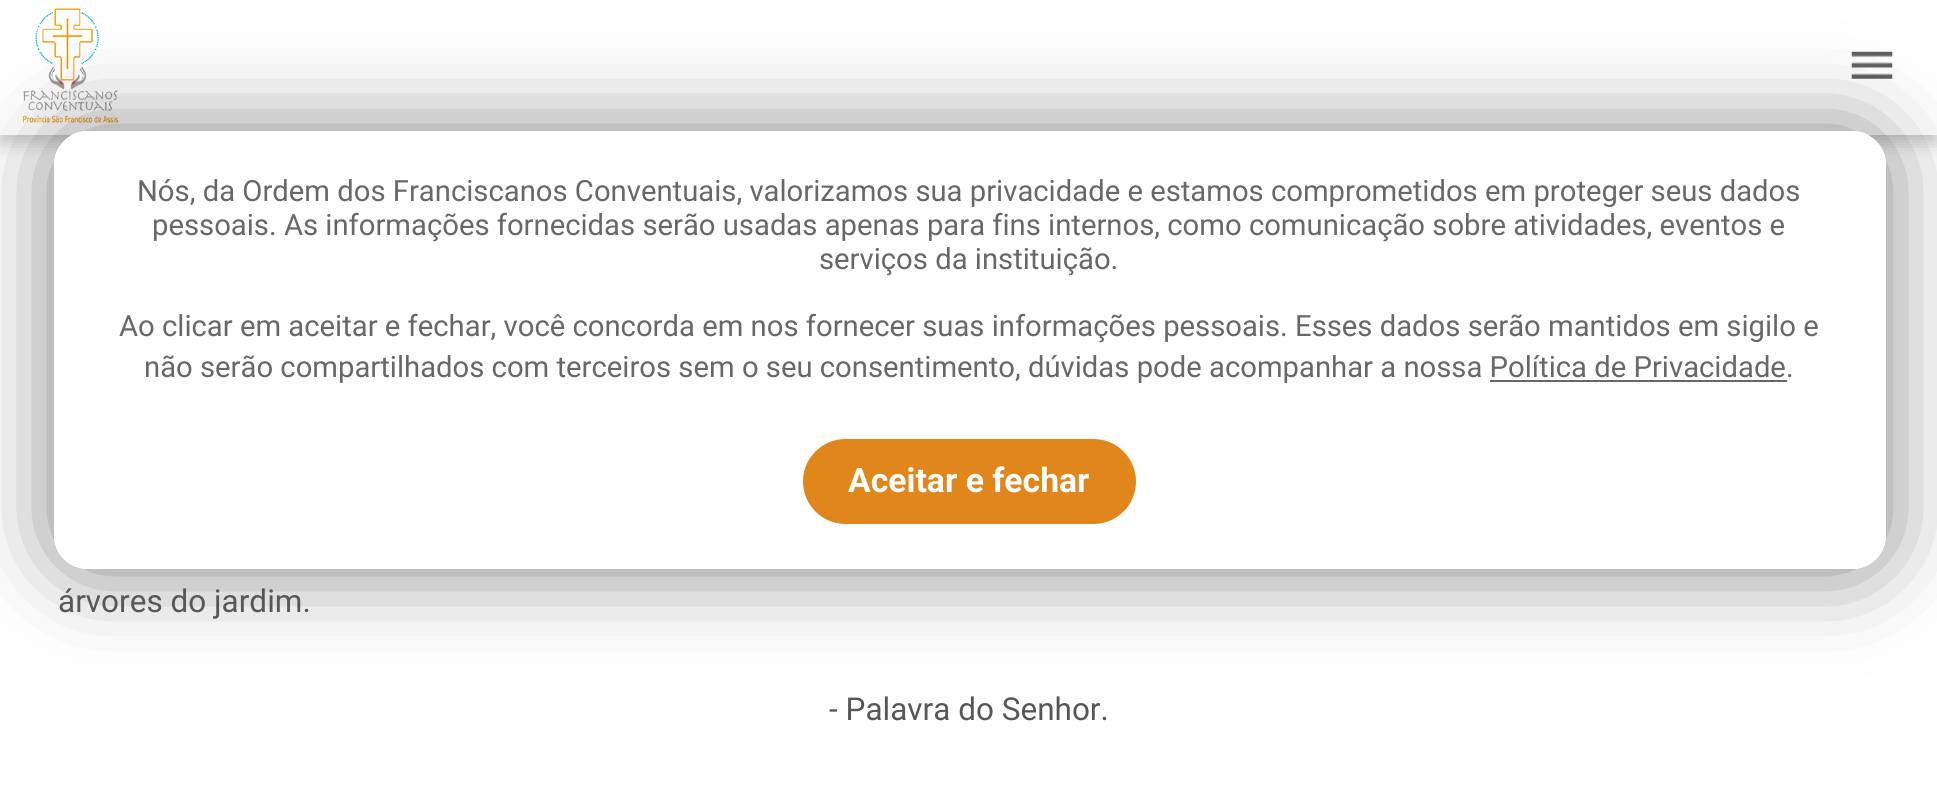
import math
import cairo

surface = cairo.ImageSurface(cairo.FORMAT_RGB24, 1937, 786)
c = cairo.Context(surface)
options = cairo.FontOptions()
options.set_hint_metrics(cairo.HINT_METRICS_OFF)
options.set_hint_style(cairo.HINT_STYLE_NONE)
c.set_font_options(options)
c.set_miter_limit(4)
def C(code):
 c.set_source_rgb(*(v / 255 for v in bytes.fromhex(code[-6:])))
def F(family, size, italic, bold):
 c.select_font_face(family, cairo.FONT_SLANT_ITALIC if italic else cairo.FONT_SLANT_NORMAL, cairo.FONT_WEIGHT_BOLD if bold else cairo.FONT_WEIGHT_NORMAL)
 c.set_font_size(size)
def T(x, y, s):
 c.move_to(x, y)
 c.show_text(s)
def R(x, y, w, h):
 c.rectangle(x, y, w, h)
 c.fill()
def Q(x, y, w, h, r):
 c.new_sub_path()
 for i, (u, v) in enumerate([(x + w - r, y + h - r), (x + r, y + h - r), (x + r, y + r), (x + w - r, y + r)]):
  c.arc(u, v, r, i * math.pi / 2, (i + 1) * math.pi / 2)
 c.close_path()
def S(x, y, w, h, r, blur, alpha):
 c.push_group_with_content(cairo.CONTENT_ALPHA)
 c.set_operator(cairo.OPERATOR_SOURCE)
 for i in range(15, -16, -2):
  e = blur * i / 6
  if min(w, h) + 2 * e > 0:
   c.set_source_rgba(0, 0, 0, alpha * math.erfc((i - 1) / 8.5) / 2)
   Q(x - e, y - e, w + 2 * e, h + 2 * e, max(0, min(r + e + blur * .6, min(w, h) / 2 + e)))
   c.fill()
 c.mask(c.pop_group())
def I(path, x, y, w, h):
 c.save()
 c.set_source_surface(cairo.ImageSurface.create_from_png(path), x, y)
 c.rectangle(x, y, w, h)
 c.fill()
 c.restore()
C('ffffff')
c.paint()
C('000000')
S(0,9,1937,135,0,8,.2)
C('ffffff')
R(0,0,1937,135)
I('1.png',23,8,96,115)
I('2.png',1851,51,42,28)
c.save()
c.set_fill_rule(cairo.FILL_RULE_EVEN_ODD)
c.new_path()
c.move_to(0,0)
c.line_to(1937,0)
c.line_to(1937,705)
c.line_to(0,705)
c.close_path()
c.move_to(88,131)
c.line_to(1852,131)
c.curve_to(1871,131,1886,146,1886,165)
c.line_to(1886,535)
c.curve_to(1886,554,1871,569,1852,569)
c.line_to(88,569)
c.curve_to(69,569,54,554,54,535)
c.line_to(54,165)
c.curve_to(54,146,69,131,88,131)
c.close_path()
c.clip()
C('000000')
S(54,131,1832,438,34,45,.5)
c.restore()
Q(54,131,1832,438,34)
c.fill()
F('Roboto',29.25,0,0)
C('686868')
T(137,201,'Nós, da Ordem dos Franciscanos Conventuais, valorizamos sua privacidade e estamos comprometidos em proteger seus dados')
T(152,235,'pessoais. As informações fornecidas serão usadas apenas para fins internos, como comunicação sobre atividades, eventos e')
T(819,269,'serviços da instituição.')
T(119,336,'Ao clicar em aceitar e fechar, você concorda em nos fornecer suas informações pessoais. Esses dados serão mantidos em sigilo e')
T(144,377,'não serão compartilhados com terceiros sem o seu consentimento, dúvidas pode acompanhar a nossa Política de Privacidade.')
R(1490,380,297,2)
C('e1861b')
Q(803,439,333,85,42.5)
c.fill()
F('Roboto',33.75,0,1)
C('ffffff')
T(848,492,'Aceitar e fechar')
F('Roboto',31.5,0,0)
C('575757')
T(58,612,'árvores do jardim.')
T(829,720,'- Palavra do Senhor.')
surface.write_to_png('o.png')
